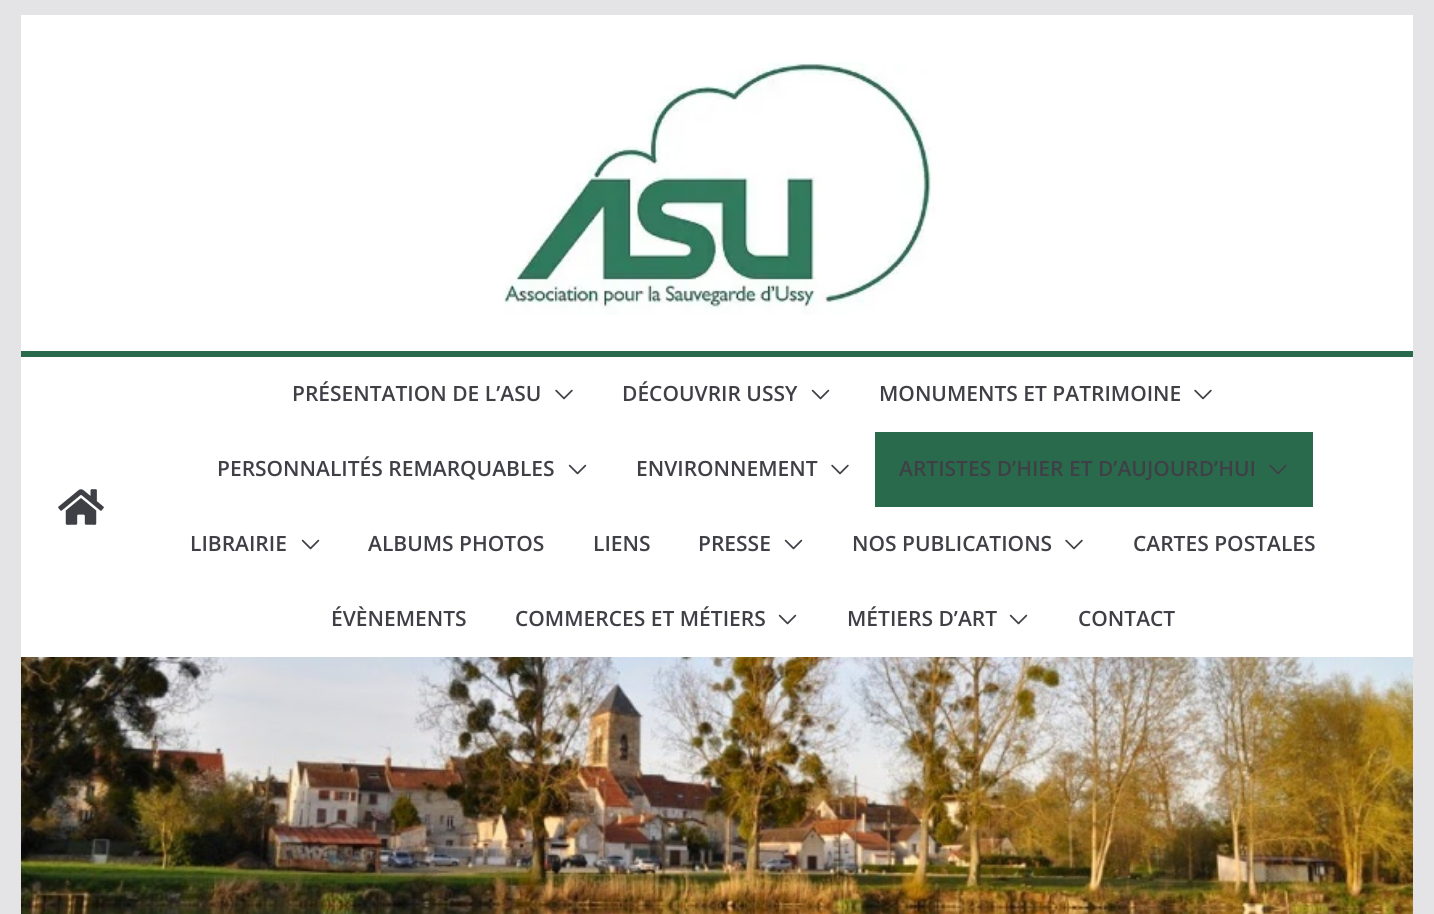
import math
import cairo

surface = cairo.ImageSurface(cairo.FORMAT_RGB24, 1434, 914)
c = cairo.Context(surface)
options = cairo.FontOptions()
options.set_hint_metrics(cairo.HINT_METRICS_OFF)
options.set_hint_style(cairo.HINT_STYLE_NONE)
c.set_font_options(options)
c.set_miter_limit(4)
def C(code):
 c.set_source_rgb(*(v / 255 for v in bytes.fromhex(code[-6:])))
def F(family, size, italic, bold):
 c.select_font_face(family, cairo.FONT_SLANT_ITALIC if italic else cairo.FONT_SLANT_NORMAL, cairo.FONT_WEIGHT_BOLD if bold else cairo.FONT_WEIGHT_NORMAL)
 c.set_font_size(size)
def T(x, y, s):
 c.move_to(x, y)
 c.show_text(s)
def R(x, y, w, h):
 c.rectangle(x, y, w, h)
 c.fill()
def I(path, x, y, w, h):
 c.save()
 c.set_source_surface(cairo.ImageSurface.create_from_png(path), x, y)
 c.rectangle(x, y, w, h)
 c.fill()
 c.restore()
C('e4e4e7')
c.paint()
C('ffffff')
R(21,15,1392,642)
I('1.png',503,62,433,253)
C('286a4b')
R(21,351,1392,6)
I('2.png',58,489,46,36)
F('Open Sans SemiBold',21,0,0)
C('3f3f46')
T(292,401,'PRÉSENTATION DE L’ASU')
I('3.png',555,389,18,11)
T(622,401,'DÉCOUVRIR USSY')
I('4.png',811,389,19,11)
T(879,401,'MONUMENTS ET PATRIMOINE')
I('3.png',1194,389,18,11)
T(217,476,'PERSONNALITÉS REMARQUABLES')
I('4.png',568,464,19,11)
T(636,476,'ENVIRONNEMENT')
I('3.png',831,464,18,11)
C('286a4b')
R(875,432,438,75)
C('3f3f46')
T(899,476,'ARTISTES D’HIER ET D’AUJOURD’HUI')
I('5.png',1269,464,18,11)
T(190,551,'LIBRAIRIE')
I('4.png',301,539,19,11)
T(368,551,'ALBUMS PHOTOS')
T(593,551,'LIENS')
T(698,551,'PRESSE')
I('4.png',784,539,19,11)
T(852,551,'NOS PUBLICATIONS')
I('3.png',1065,539,18,11)
T(1133,551,'CARTES POSTALES')
T(331,626,'ÉVÈNEMENTS')
T(515,626,'COMMERCES ET MÉTIERS')
I('4.png',778,614,19,11)
T(847,626,'MÉTIERS D’ART')
I('4.png',1009,614,19,11)
T(1078,626,'CONTACT')
I('6.png',21,657,1392,257)
surface.write_to_png('o.png')
